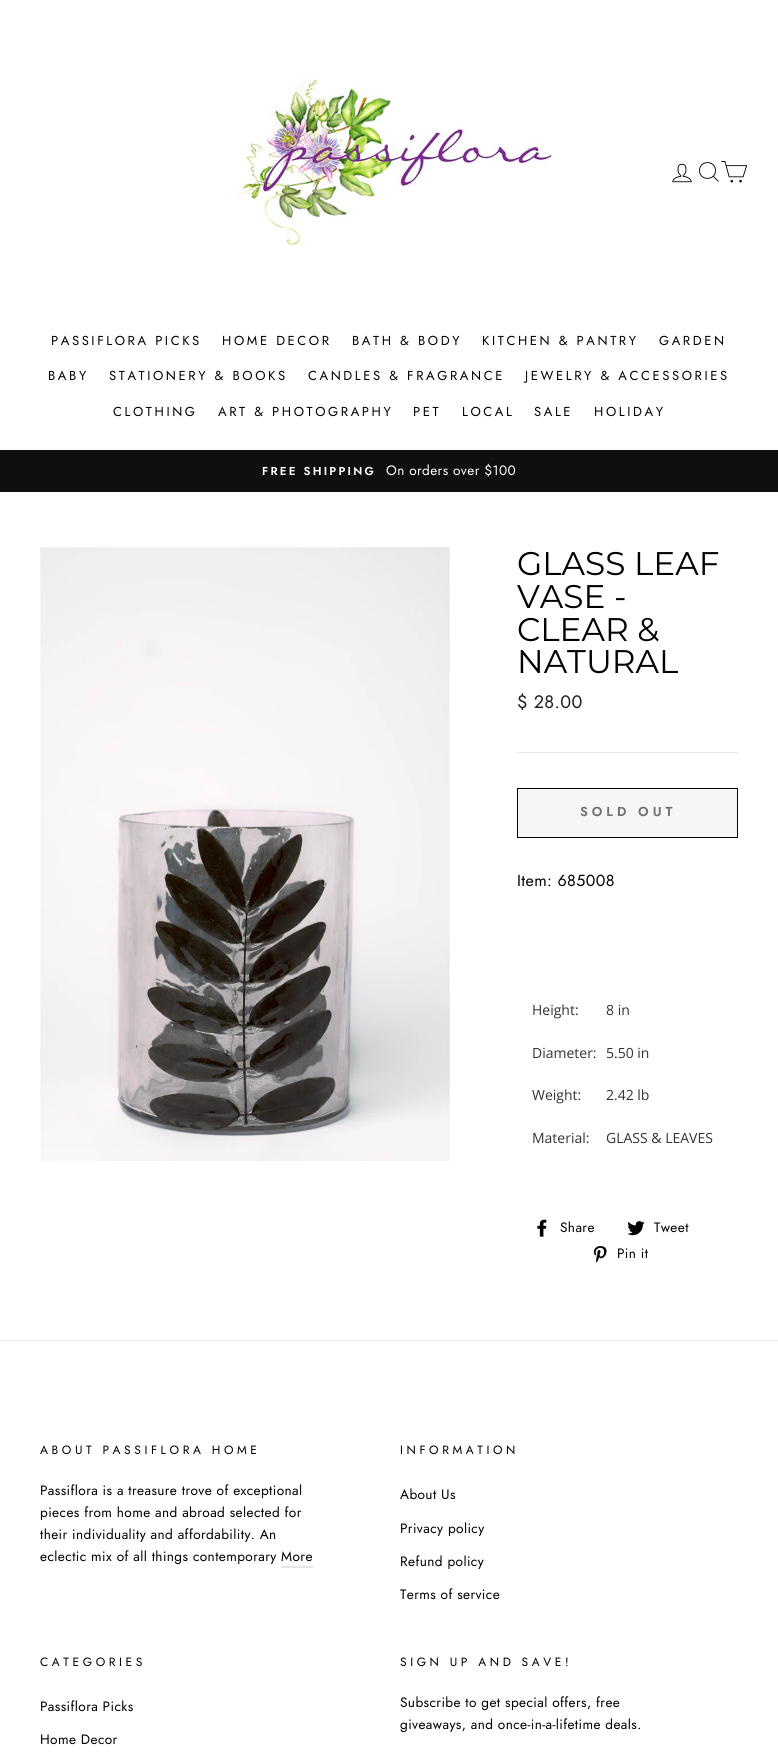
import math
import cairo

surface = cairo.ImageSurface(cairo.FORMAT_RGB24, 778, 1757)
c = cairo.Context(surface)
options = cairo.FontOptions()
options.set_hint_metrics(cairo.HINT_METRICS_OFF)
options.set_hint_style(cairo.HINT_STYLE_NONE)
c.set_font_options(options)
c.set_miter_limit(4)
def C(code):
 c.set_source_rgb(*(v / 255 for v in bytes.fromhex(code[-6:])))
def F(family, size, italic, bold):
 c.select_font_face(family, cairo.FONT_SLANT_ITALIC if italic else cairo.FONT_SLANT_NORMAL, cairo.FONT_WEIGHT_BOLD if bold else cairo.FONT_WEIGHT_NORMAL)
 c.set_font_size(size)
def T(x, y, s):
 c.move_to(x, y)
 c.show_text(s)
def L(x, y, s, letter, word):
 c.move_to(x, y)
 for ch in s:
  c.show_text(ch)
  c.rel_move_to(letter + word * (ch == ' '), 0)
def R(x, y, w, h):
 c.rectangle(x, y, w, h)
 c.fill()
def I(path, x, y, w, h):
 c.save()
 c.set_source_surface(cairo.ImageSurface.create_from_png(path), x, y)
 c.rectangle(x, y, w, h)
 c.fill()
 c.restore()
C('ffffff')
c.paint()
I('1.png',236,78,319,169)
I('2.png',672,163,20,20)
c.new_path()
c.move_to(715.5,170.5)
c.curve_to(715.5,181,699.5,181,699.5,170.5)
c.curve_to(699.5,160,715.5,160,715.5,170.5)
c.close_path()
c.move_to(718.5,181.5)
c.line_to(713.5,176.5)
C('000000')
c.set_line_width(.9)
c.stroke()
I('3.png',721,161,27,22)
F('Jost',13,0,0)
L(51,345,'PASSIFLORA PICKS',2.6,0)
L(222,345,'HOME DECOR',2.6,0)
L(352,345,'BATH & BODY',2.6,0)
L(482,345,'KITCHEN & PANTRY',2.6,0)
L(659,345,'GARDEN',2.6,0)
L(48,380,'BABY',2.6,0)
L(109,380,'STATIONERY & BOOKS',2.6,0)
L(308,380,'CANDLES & FRAGRANCE',2.6,0)
L(525,380,'JEWELRY & ACCESSORIES',2.6,0)
L(113,416,'CLOTHING',2.6,0)
L(218,416,'ART & PHOTOGRAPHY',2.6,0)
L(413,416,'PET',2.6,0)
L(462,416,'LOCAL',2.6,0)
L(534,416,'SALE',2.6,0)
L(594,416,'HOLIDAY',2.6,0)
C('0f0f0f')
R(0,450,778,42)
F('Jost SemiBold',11.5,0,0)
C('ffffff')
L(262,475,'FREE SHIPPING',2.25,0)
F('Jost',13.6,0,0)
L(386,475,'On orders over $100',.4,0)
I('4.png',40,547,410,614)
F('Montserrat',32.75,0,0)
C('000000')
T(517,575,'GLASS LEAF')
T(517,608,'VASE -')
T(517,641,'CLEAR &')
T(517,673,'NATURAL')
F('Jost',18,0,0)
C('1c1d1d')
L(517,708,'$ 28.00',.4,0)
C('e8e8e1')
R(517,752,221,1)
C('f6f6f6')
c.rectangle(517.5,788.5,220,49)
c.fill_preserve()
C('000000')
c.set_line_width(1)
c.stroke()
F('Jost SemiBold',13,0,0)
C('717171')
L(580,816,'SOLD OUT',4,0)
F('Jost',16,0,0)
C('000000')
L(517,886,'Item: 685008',.4,0)
F('Open Sans',14,0,0)
C('333333')
T(532,1015,'Height:')
T(606,1015,'8 in')
T(532,1058,'Diameter:')
T(606,1058,'5.50 in')
T(532,1100,'Weight:')
T(606,1100,'2.42 lb')
T(532,1143,'Material:')
T(606,1143,'GLASS & LEAVES')
I('5.png',537,1219,10,18)
F('Jost',13.6,0,0)
C('000000')
L(560,1232,'Share',.4,0)
I('6.png',627,1221,18,15)
L(654,1232,'Tweet',.4,0)
I('7.png',593,1246,14,17)
L(617,1258,'Pin it',.4,0)
C('e8e8e1')
R(0,1340,778,1)
F('Jost',12,0,0)
C('000000')
L(40,1454,'ABOUT PASSIFLORA HOME',3.6,0)
F('Jost',13.6,0,0)
L(40,1495,'Passiflora is a treasure trove of exceptional',.4,0)
L(40,1517,'pieces from home and abroad selected for',.4,0)
L(40,1539,'their individuality and affordability. An',.4,0)
L(40,1561,'eclectic mix of all things contemporary More',.4,0)
C('e6e6e6')
R(281,1566,32,2)
F('Jost',12,0,0)
C('000000')
L(400,1454,'INFORMATION',3.6,0)
F('Jost',13.6,0,0)
L(400,1499,'About Us',.4,0)
L(400,1533,'Privacy policy',.4,0)
L(400,1566,'Refund policy',.4,0)
L(400,1599,'Terms of service',.4,0)
F('Jost',12,0,0)
L(40,1666,'CATEGORIES',3.6,0)
F('Jost',13.6,0,0)
L(40,1711,'Passiflora Picks',.4,0)
L(40,1744,'Home Decor',.4,0)
F('Jost',12,0,0)
L(400,1666,'SIGN UP AND SAVE!',3.6,0)
F('Jost',13.6,0,0)
L(400,1707,'Subscribe to get special offers, free',.4,0)
L(400,1729,'giveaways, and once-in-a-lifetime deals.',.4,0)
surface.write_to_png('o.png')
